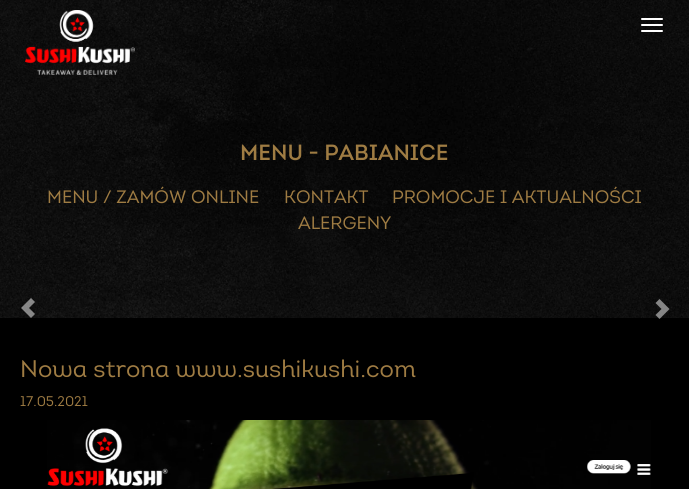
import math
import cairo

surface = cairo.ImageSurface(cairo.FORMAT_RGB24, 689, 489)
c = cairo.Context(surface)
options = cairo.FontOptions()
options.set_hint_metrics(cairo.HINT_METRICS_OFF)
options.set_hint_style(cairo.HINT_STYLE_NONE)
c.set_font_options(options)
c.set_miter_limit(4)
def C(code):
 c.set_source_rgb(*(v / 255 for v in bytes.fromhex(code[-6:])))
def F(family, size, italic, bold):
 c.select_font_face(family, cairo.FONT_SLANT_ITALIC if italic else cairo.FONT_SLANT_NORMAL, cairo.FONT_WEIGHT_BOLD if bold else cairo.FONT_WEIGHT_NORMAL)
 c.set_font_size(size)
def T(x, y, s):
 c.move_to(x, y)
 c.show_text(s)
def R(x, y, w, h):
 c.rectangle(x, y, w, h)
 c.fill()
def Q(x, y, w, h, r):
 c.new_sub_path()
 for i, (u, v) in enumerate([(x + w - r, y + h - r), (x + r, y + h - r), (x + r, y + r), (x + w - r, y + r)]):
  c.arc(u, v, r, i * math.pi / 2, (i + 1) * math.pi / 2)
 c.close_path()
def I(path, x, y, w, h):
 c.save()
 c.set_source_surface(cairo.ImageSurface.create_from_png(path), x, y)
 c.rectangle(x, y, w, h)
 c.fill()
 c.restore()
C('ffffff')
c.paint()
I('1.png',0,0,689,318)
I('2.png',25,10,110,65)
C('ffffff')
Q(641,18,22,2,1)
c.fill()
Q(641,24,22,2,1)
c.fill()
Q(641,30,22,2,1)
c.fill()
F('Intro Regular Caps',22,0,0)
C('9f7c43')
T(240,160,'Menu - Pabianice')
F('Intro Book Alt',18,0,0)
T(47,203,'MENU / ZAMÓW ONLINE')
T(284,203,'KONTAKT')
T(392,203,'PROMOCJE I AKTUALNOŚCI')
T(298,229,'ALERGENY')
c.set_source_rgba(1,1,1,0.5)
c.new_path()
c.move_to(21,308)
c.line_to(31,318)
c.line_to(35,314)
c.line_to(29,308)
c.line_to(35,302)
c.line_to(31,298)
c.close_path()
c.fill()
C('000000')
R(0,318,689,171)
c.set_source_rgba(1,1,1,0.5)
c.new_path()
c.move_to(655.5,315)
c.line_to(661.5,309)
c.line_to(655.5,303)
c.line_to(659.5,299)
c.line_to(669.5,309)
c.line_to(659.5,319)
c.close_path()
c.fill()
F('Intro Book Alt',24,0,0)
C('9f7c43')
T(20,377,'Nowa strona www.sushikushi.com')
F('Intro Book Alt',14,0,0)
T(20,406,'17.05.2021')
I('3.png',47,420,604,69)
surface.write_to_png('o.png')
